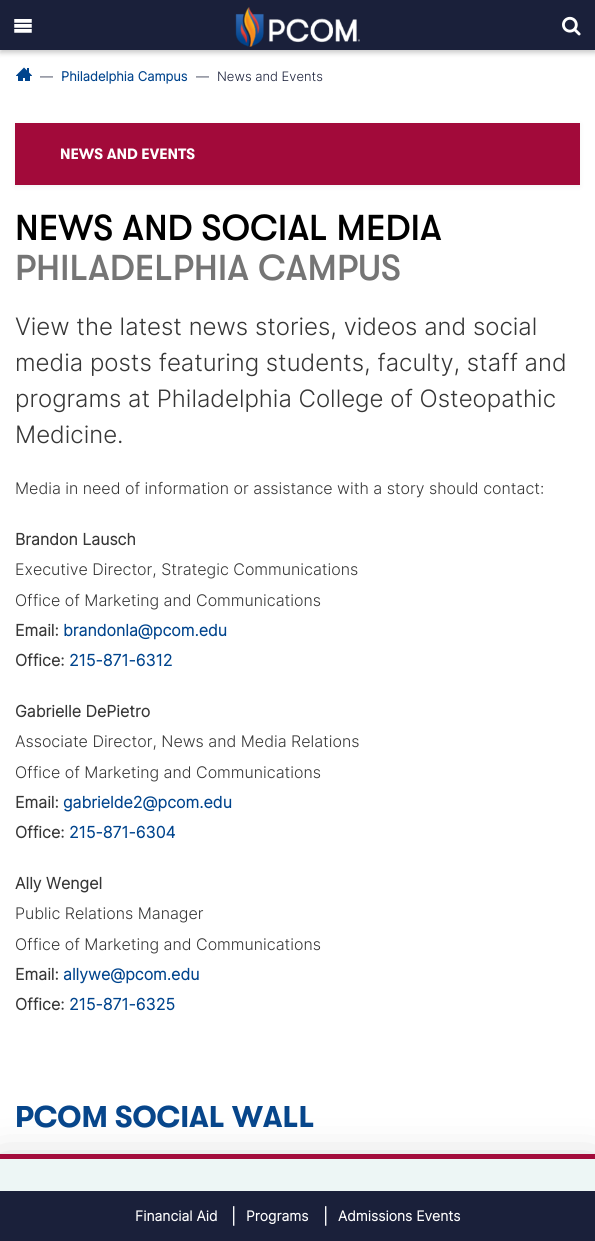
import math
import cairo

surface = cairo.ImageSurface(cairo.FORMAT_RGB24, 595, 1241)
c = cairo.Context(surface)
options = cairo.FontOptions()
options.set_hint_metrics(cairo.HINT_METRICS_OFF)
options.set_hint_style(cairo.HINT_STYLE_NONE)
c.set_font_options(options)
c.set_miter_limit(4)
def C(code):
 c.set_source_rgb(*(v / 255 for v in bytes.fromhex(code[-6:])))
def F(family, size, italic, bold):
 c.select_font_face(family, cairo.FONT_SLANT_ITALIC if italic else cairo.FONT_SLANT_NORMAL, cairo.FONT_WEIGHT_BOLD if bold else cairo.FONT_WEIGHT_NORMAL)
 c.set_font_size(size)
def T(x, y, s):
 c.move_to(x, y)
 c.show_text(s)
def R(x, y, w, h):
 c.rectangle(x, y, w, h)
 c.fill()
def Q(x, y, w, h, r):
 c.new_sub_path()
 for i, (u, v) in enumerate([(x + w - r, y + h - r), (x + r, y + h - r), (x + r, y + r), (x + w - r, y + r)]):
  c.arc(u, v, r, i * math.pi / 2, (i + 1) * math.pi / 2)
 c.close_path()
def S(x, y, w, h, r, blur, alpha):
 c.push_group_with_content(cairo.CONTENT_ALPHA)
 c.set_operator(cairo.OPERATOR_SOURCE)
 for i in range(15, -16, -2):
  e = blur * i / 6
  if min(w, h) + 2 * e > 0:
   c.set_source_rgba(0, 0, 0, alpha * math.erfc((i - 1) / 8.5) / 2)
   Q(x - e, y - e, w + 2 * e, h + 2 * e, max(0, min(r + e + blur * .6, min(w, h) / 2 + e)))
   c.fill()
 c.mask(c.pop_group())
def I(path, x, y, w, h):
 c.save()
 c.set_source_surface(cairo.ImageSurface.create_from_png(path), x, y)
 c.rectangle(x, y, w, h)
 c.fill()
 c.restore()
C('ffffff')
c.paint()
C('000000')
S(0,3,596,50,0,2.5,.2)
C('1a203a')
R(0,0,595,50)
I('1.png',14,19,18,14)
I('2.png',235,7,125,40)
I('3.png',562,16,19,20)
I('4.png',16,67,16,14)
F('Inter Light',13,0,0)
T(40,81,'—')
F('Inter',13,0,1)
C('00448d')
T(61,81,'Philadelphia Campus')
F('Inter Light',13,0,0)
C('1a203a')
T(196,81,'—')
T(217,81,'News and Events')
C('000000')
S(15,124,565,63,0,2.5,.05)
C('a20a3a')
R(15,123,565,62)
F('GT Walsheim',15,0,1)
C('ffffff')
T(60,159,'NEWS AND EVENTS')
F('GT Walsheim Medium',36,0,0)
C('000000')
T(15,240,'NEWS AND SOCIAL MEDIA')
C('757575')
T(15,280,'PHILADELPHIA CAMPUS')
F('Inter Light',24,0,0)
C('363636')
T(15,335,'View the latest news stories, videos and social')
T(15,371,'media posts featuring students, faculty, staff and')
T(15,407,'programs at Philadelphia College of Osteopathic')
T(15,443,'Medicine.')
F('Inter Light',16,0,0)
T(15,494,'Media in need of information or assistance with a story should contact:')
F('Inter',16,0,1)
T(15,545,'Brandon Lausch')
F('Inter Light',16,0,0)
T(15,575,'Executive Director, Strategic Communications')
T(15,606,'Office of Marketing and Communications')
F('Inter',16,0,1)
T(15,636,'Email:')
C('00448d')
T(63,636,'brandonla@pcom.edu')
C('363636')
T(15,666,'Office:')
C('00448d')
T(69,666,'215-871-6312')
C('363636')
T(15,717,'Gabrielle DePietro')
F('Inter Light',16,0,0)
T(15,747,'Associate Director, News and Media Relations')
T(15,778,'Office of Marketing and Communications')
F('Inter',16,0,1)
T(15,808,'Email:')
C('00448d')
T(63,808,'gabrielde2@pcom.edu')
C('363636')
T(15,838,'Office:')
C('00448d')
T(69,838,'215-871-6304')
C('363636')
T(15,889,'Ally Wengel')
F('Inter Light',16,0,0)
T(15,919,'Public Relations Manager')
T(15,950,'Office of Marketing and Communications')
F('Inter',16,0,1)
T(15,980,'Email:')
C('00448d')
T(63,980,'allywe@pcom.edu')
C('363636')
T(15,1010,'Office:')
C('00448d')
T(69,1010,'215-871-6325')
C('000000')
S(0,1170,595,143,0,24,.28)
C('edf6f5')
R(0,1159,595,32)
C('a20a3a')
R(0,1154,595,5)
F('GT Walsheim',30,0,1)
C('07468b')
T(15,1127,'PCOM SOCIAL WALL')
C('1a203a')
R(0,1191,595,50)
F('Inter',14,0,1)
C('ffffff')
T(135,1221,'Financial Aid')
F('Inter',16,0,1)
T(231,1222,'|')
F('Inter',14,0,1)
T(246,1221,'Programs')
F('Inter',16,0,1)
T(323,1222,'|')
F('Inter',14,0,1)
T(338,1221,'Admissions Events')
surface.write_to_png('o.png')
